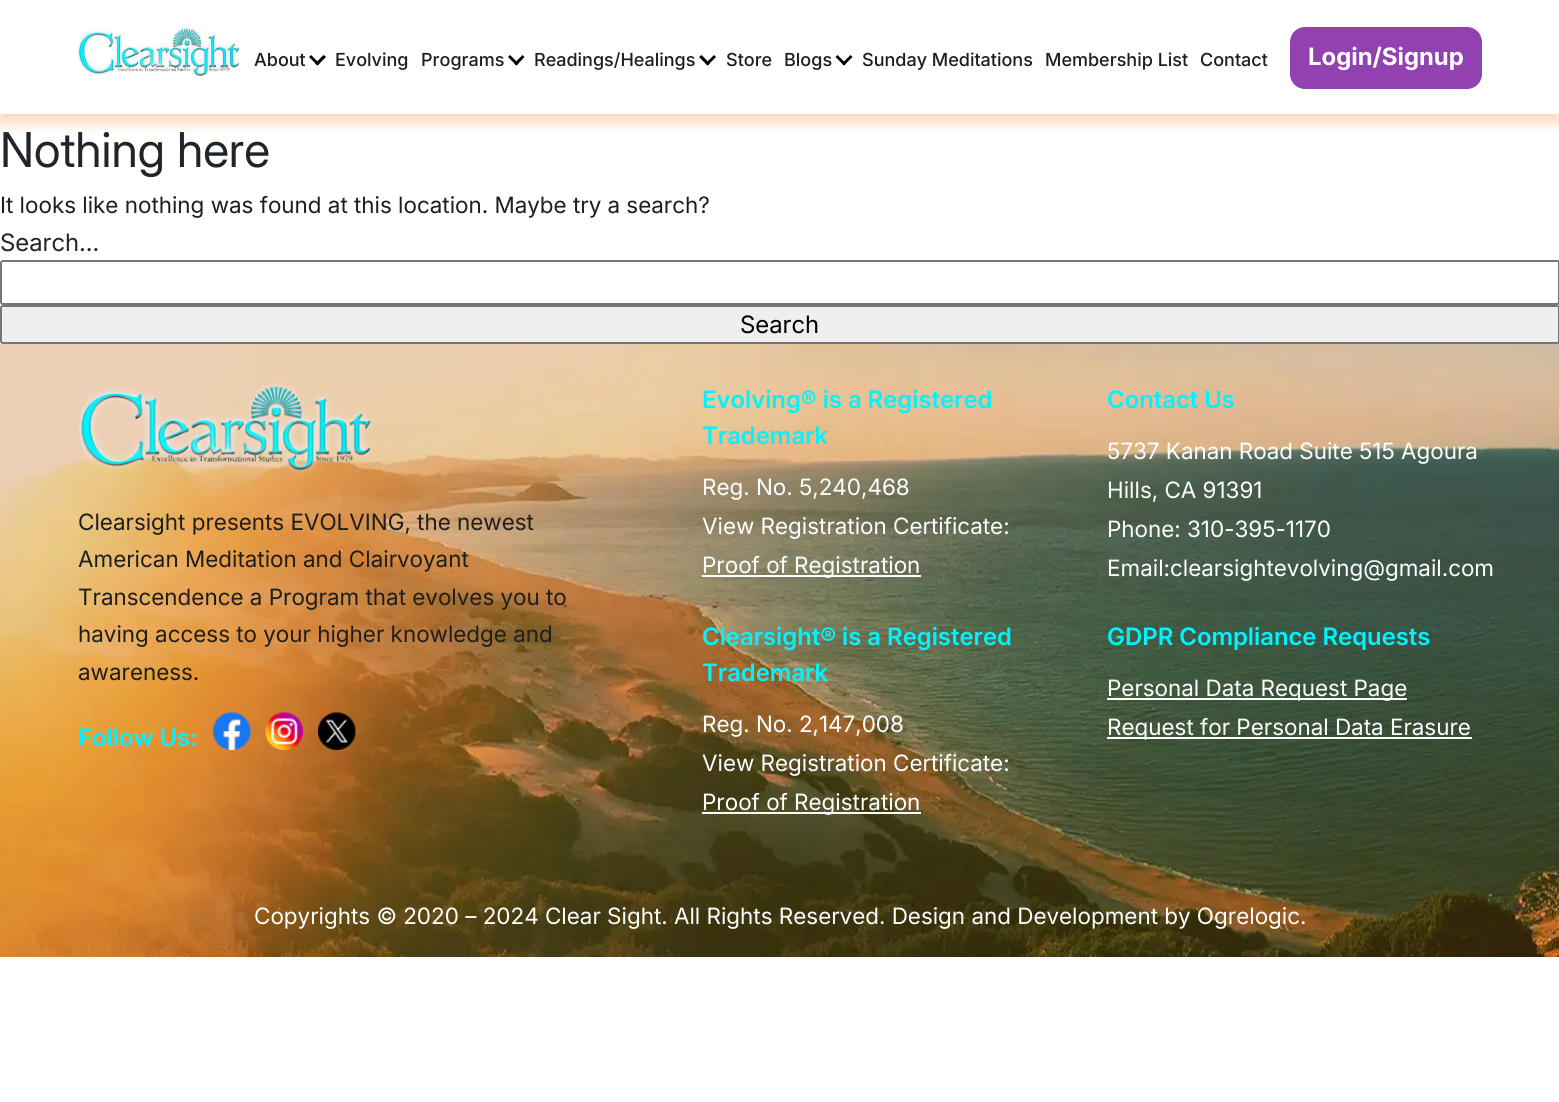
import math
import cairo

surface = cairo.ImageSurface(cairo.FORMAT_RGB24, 1559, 1102)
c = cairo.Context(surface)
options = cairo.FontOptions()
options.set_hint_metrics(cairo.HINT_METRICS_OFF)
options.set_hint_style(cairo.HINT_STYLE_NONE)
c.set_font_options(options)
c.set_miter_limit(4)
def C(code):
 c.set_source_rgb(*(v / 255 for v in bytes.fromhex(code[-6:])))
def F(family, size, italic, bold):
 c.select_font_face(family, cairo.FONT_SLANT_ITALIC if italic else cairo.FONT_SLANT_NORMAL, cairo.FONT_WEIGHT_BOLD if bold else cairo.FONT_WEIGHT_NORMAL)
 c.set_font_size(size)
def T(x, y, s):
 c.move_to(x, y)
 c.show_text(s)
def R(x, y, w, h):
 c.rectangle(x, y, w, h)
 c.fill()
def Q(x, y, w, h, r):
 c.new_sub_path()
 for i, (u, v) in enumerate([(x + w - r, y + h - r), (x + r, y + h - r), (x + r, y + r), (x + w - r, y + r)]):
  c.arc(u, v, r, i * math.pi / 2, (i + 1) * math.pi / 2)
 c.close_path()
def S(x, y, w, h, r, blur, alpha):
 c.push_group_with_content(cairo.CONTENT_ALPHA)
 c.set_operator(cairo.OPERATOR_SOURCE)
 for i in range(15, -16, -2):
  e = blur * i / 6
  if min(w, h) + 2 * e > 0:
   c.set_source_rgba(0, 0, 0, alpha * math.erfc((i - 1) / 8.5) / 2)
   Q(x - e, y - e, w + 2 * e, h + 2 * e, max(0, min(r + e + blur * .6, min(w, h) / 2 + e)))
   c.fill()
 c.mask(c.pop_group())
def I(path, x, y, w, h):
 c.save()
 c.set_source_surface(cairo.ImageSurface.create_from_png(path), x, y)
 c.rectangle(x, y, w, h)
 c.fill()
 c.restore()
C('ffffff')
c.paint()
c.save()
c.rectangle(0,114,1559,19)
c.clip()
C('ed6707')
S(0,8,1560,114,0,7.5,.3)
c.restore()
I('1.png',78,26,161,51)
F('Inter Medium',18,0,0)
C('1e1e1e')
T(254,66,'About')
C('000000')
c.new_path()
c.move_to(323.5,55)
c.line_to(326,57)
c.line_to(317.5,65.5)
c.line_to(315,63.5)
c.close_path()
c.fill()
c.new_path()
c.move_to(311,55)
c.line_to(319.5,63.5)
c.line_to(317.5,65.5)
c.line_to(309,57)
c.close_path()
c.fill()
C('1e1e1e')
T(335,66,'Evolving')
T(421,66,'Programs')
C('000000')
c.new_path()
c.move_to(522.5,55)
c.line_to(524.5,57)
c.line_to(516.5,65.5)
c.line_to(514,63.5)
c.close_path()
c.fill()
c.new_path()
c.move_to(510,55)
c.line_to(518.5,63.5)
c.line_to(516.5,65.5)
c.line_to(508,57)
c.close_path()
c.fill()
C('1e1e1e')
T(534,66,'Readings/Healings')
C('000000')
c.new_path()
c.move_to(714,55)
c.line_to(716,57)
c.line_to(707.5,65.5)
c.line_to(705.5,63.5)
c.close_path()
c.fill()
c.new_path()
c.move_to(701.5,55)
c.line_to(710,63.5)
c.line_to(707.5,65.5)
c.line_to(699,57)
c.close_path()
c.fill()
C('1e1e1e')
T(726,66,'Store')
T(784,66,'Blogs')
C('000000')
c.new_path()
c.move_to(850.5,55)
c.line_to(852.5,57)
c.line_to(844,65.5)
c.line_to(842,63.5)
c.close_path()
c.fill()
c.new_path()
c.move_to(837.5,55)
c.line_to(846,63.5)
c.line_to(844,65.5)
c.line_to(835.5,57)
c.close_path()
c.fill()
C('1e1e1e')
T(862,66,'Sunday Meditations')
T(1045,66,'Membership List')
T(1200,66,'Contact')
C('9241b1')
Q(1290,27,192,62,15)
c.fill()
F('Inter',24,0,1)
C('ffffff')
T(1308,65,'Login/Signup')
F('Inter',48,0,0)
C('212529')
T(0,167,'Nothing here')
F('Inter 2',22.5,0,0)
C('1e1e1e')
T(0,213,'It looks like nothing was found at this location. Maybe try a search?')
F('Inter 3',24,0,0)
C('212529')
T(0,251,'Search…')
Q(1,261,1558,43,2)
C('767676')
c.stroke()
I('2.png',0,343,1559,614)
C('efefef')
Q(1,306,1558,37,2)
c.fill_preserve()
C('767676')
c.stroke()
C('000000')
T(740,333,'Search')
I('3.png',79,381,296,93)
F('Inter 2',22.5,0,0)
C('1e1e1e')
T(78,530,'Clearsight presents EVOLVING, the newest')
T(78,567,'American Meditation and Clairvoyant')
T(78,605,'Transcendence a Program that evolves you to')
T(78,642,'having access to your higher knowledge and')
T(78,680,'awareness.')
F('Inter SemiBold',24,0,0)
C('00f3ff')
T(78,746,'Follow Us:')
I('4.png',213,712,38,38)
I('5.png',265,712,38,38)
I('6.png',318,712,38,38)
T(702,408,'Evolving® is a Registered')
T(702,444,'Trademark')
F('Inter 2',22.5,0,0)
C('ffffff')
T(702,495,'Reg. No. 5,240,468')
T(702,534,'View Registration Certificate:')
R(702,575,219,2)
T(702,573,'Proof of Registration')
F('Inter SemiBold',24,0,0)
C('00f3ff')
T(1107,408,'Contact Us')
F('Inter 2',22.5,0,0)
C('ffffff')
T(1107,459,'5737 Kanan Road Suite 515 Agoura')
T(1107,498,'Hills, CA 91391')
T(1107,537,'Phone: 310-395-1170')
T(1107,576,'Email:clearsightevolving@gmail.com')
F('Inter SemiBold',24,0,0)
C('00f3ff')
T(702,645,'Clearsight® is a Registered')
T(702,681,'Trademark')
F('Inter 2',22.5,0,0)
C('ffffff')
T(702,732,'Reg. No. 2,147,008')
T(702,771,'View Registration Certificate:')
R(702,812,219,2)
T(702,810,'Proof of Registration')
F('Inter SemiBold',24,0,0)
C('00f3ff')
T(1107,645,'GDPR Compliance Requests')
C('ffffff')
R(1107,698,300,2)
F('Inter 2',22.5,0,0)
T(1107,696,'Personal Data Request Page')
R(1107,737,365,2)
T(1107,735,'Request for Personal Data Erasure')
T(254,924,'Copyrights © 2020 – 2024 Clear Sight. All Rights Reserved. Design and Development by Ogrelogic.')
surface.write_to_png('o.png')
